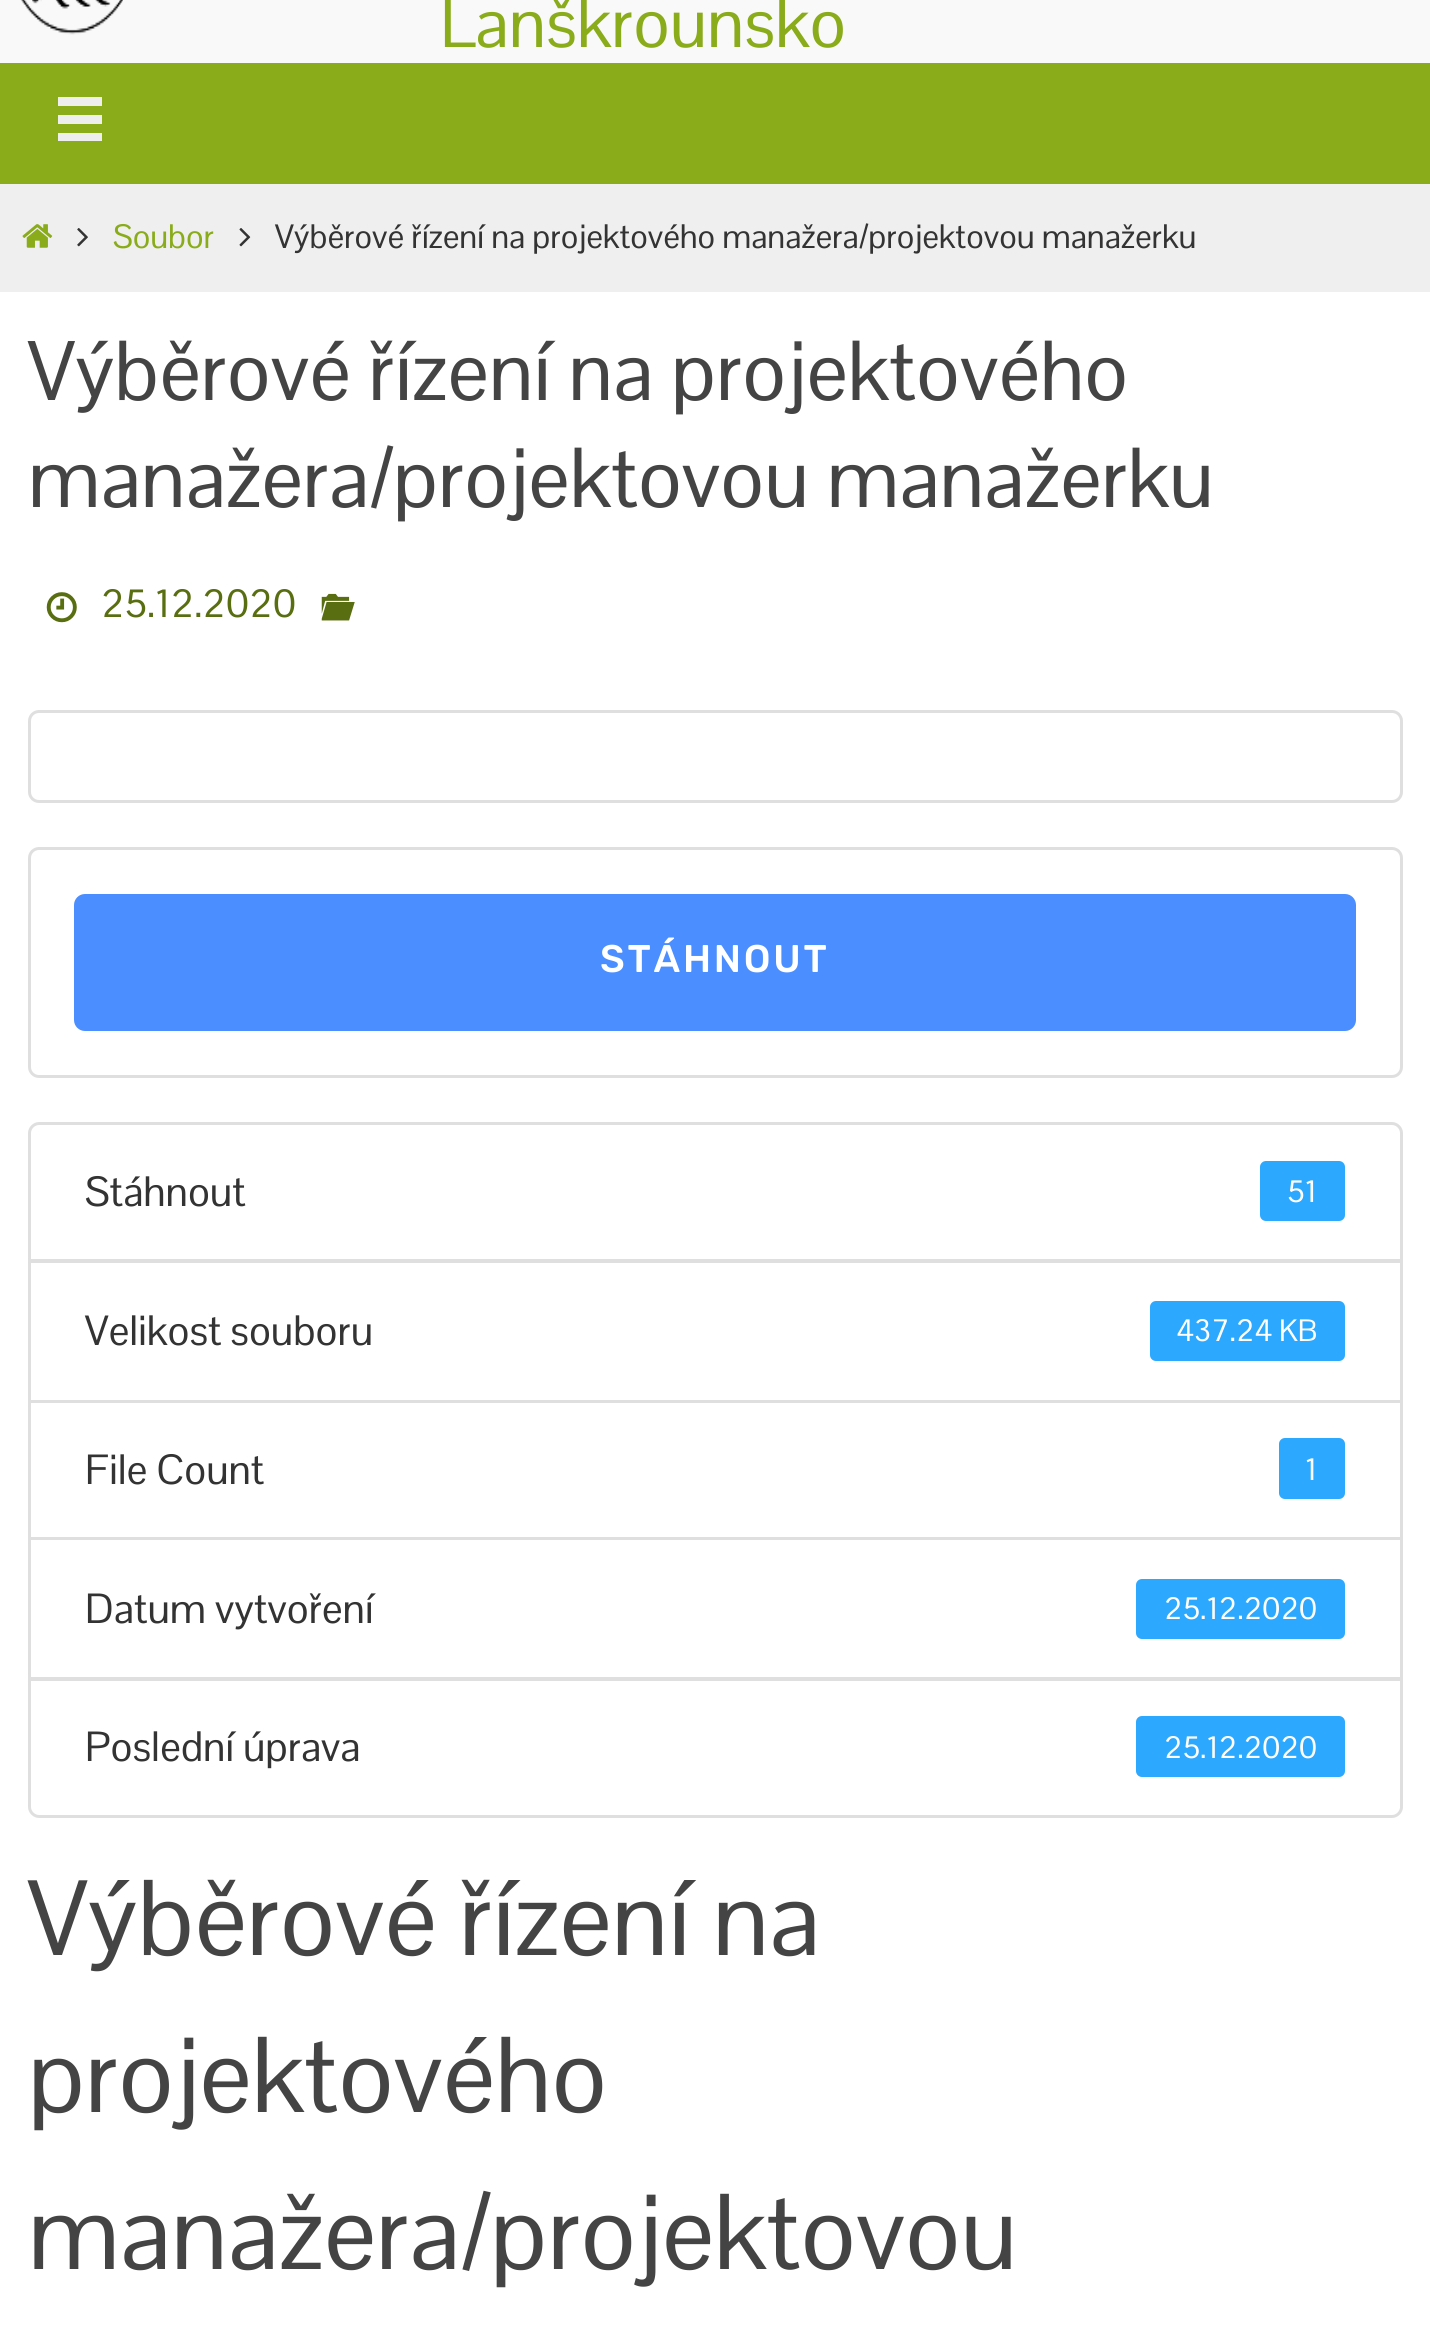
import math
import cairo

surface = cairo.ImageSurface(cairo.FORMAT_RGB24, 1430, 2326)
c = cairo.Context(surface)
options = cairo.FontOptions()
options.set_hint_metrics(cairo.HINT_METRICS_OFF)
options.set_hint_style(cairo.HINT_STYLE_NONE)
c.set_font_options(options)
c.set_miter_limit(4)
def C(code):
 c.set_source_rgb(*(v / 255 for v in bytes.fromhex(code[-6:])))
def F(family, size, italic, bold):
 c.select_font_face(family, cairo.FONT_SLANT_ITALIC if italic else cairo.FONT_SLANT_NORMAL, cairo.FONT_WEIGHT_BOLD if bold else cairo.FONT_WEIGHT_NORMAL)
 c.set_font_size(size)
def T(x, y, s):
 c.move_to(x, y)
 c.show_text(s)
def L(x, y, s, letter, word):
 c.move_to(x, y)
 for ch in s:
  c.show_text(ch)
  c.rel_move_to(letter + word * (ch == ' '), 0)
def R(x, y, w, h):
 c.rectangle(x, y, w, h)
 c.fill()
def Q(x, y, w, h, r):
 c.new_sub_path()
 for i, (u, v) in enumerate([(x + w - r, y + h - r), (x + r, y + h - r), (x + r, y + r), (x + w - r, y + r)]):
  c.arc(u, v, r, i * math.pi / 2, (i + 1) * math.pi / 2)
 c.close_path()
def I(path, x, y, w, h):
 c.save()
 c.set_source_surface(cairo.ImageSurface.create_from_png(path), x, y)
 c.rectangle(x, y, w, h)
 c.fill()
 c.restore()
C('f9f9f9')
c.paint()
I('1.png',21,0,102,35)
F('Pontano Sans',68.75,0,0)
C('8aac1a')
T(440,47,'Lanškrounsko')
R(0,63,1430,121)
C('eeeeee')
c.new_path()
c.move_to(58,97)
c.line_to(58,106)
c.line_to(102,106)
c.line_to(102,97)
c.close_path()
c.move_to(58,115)
c.line_to(58,124)
c.line_to(102,124)
c.line_to(102,115)
c.close_path()
c.move_to(58,133)
c.line_to(58,141)
c.line_to(102,141)
c.line_to(102,133)
c.close_path()
c.fill()
C('efefef')
R(0,184,1430,108)
I('2.png',22,224,31,24)
I('3.png',77,228,11,19)
F('Pontano Sans',33,0,0)
C('8aac1a')
T(113,248,'Soubor')
I('4.png',239,228,12,19)
C('333333')
T(275,248,'Výběrové řízení na projektového manažera/projektovou manažerku')
C('ffffff')
R(0,292,1430,2034)
F('Pontano Sans',82.5,0,0)
C('444444')
T(28,400,'Výběrové řízení na projektového')
T(28,507,'manažera/projektovou manažerku')
I('5.png',46,592,31,31)
F('Pontano Sans',38.5,0,0)
C('586e10')
T(101,617,'25.12.2020')
I('6.png',321,593,34,28)
Q(29.5,711.5,1372,90,9.5)
C('dfdfdf')
c.set_line_width(3)
c.stroke()
Q(29.5,848.5,1372,228,9.5)
c.stroke()
C('4a8eff')
Q(75.5,895.5,1279,134,9.5)
c.fill_preserve()
c.stroke()
F('Rubik Medium',38.5,0,0)
C('ffffff')
L(600,972,'STÁHNOUT',2.75,0)
c.new_path()
c.move_to(39,1123.5)
c.line_to(1392,1123.5)
c.curve_to(1397,1123.5,1401.5,1128,1401.5,1133)
c.line_to(1401.5,1260.5)
c.line_to(29.5,1260.5)
c.line_to(29.5,1133)
c.curve_to(29.5,1128,34,1123.5,39,1123.5)
c.close_path()
C('dfdfdf')
c.stroke()
F('Pontano Sans',41.25,0,0)
C('333333')
T(85,1206,'Stáhnout')
C('2ca8ff')
Q(1260,1161,85,60,6)
c.fill()
F('Pontano Sans',30.25,0,0)
C('ffffff')
T(1287,1202,'51')
c.rectangle(29.5,1261.5,1372,140)
C('dfdfdf')
c.stroke()
F('Pontano Sans',41.25,0,0)
C('333333')
T(85,1345,'Velikost souboru')
C('2ca8ff')
Q(1150,1301,195,60,6)
c.fill()
F('Pontano Sans',30.25,0,0)
C('ffffff')
T(1176,1341,'437.24 KB')
c.rectangle(29.5,1401.5,1372,137)
C('dfdfdf')
c.stroke()
F('Pontano Sans',41.25,0,0)
C('333333')
T(85,1484,'File Count')
C('2ca8ff')
Q(1279,1438,66,61,6)
c.fill()
F('Pontano Sans',30.25,0,0)
C('ffffff')
T(1305,1480,'1')
c.rectangle(29.5,1538.5,1372,140)
C('dfdfdf')
c.stroke()
F('Pontano Sans',41.25,0,0)
C('333333')
T(85,1623,'Datum vytvoření')
C('2ca8ff')
Q(1136,1579,209,60,6)
c.fill()
F('Pontano Sans',30.25,0,0)
C('ffffff')
T(1164,1619,'25.12.2020')
c.new_path()
c.move_to(29.5,1679.5)
c.line_to(1401.5,1679.5)
c.line_to(1401.5,1807)
c.curve_to(1401.5,1812,1397,1816.5,1392,1816.5)
c.line_to(39,1816.5)
c.curve_to(34,1816.5,29.5,1812,29.5,1807)
c.close_path()
c.fill_preserve()
C('dfdfdf')
c.stroke()
F('Pontano Sans',41.25,0,0)
C('333333')
T(85,1761,'Poslední úprava')
C('2ca8ff')
Q(1136,1716,209,61,6)
c.fill()
F('Pontano Sans',30.25,0,0)
C('ffffff')
T(1164,1758,'25.12.2020')
F('Pontano Sans',104.5,0,0)
C('444444')
T(28,1955,'Výběrové řízení na')
T(28,2112,'projektového')
T(28,2269,'manažera/projektovou')
surface.write_to_png('o.png')
